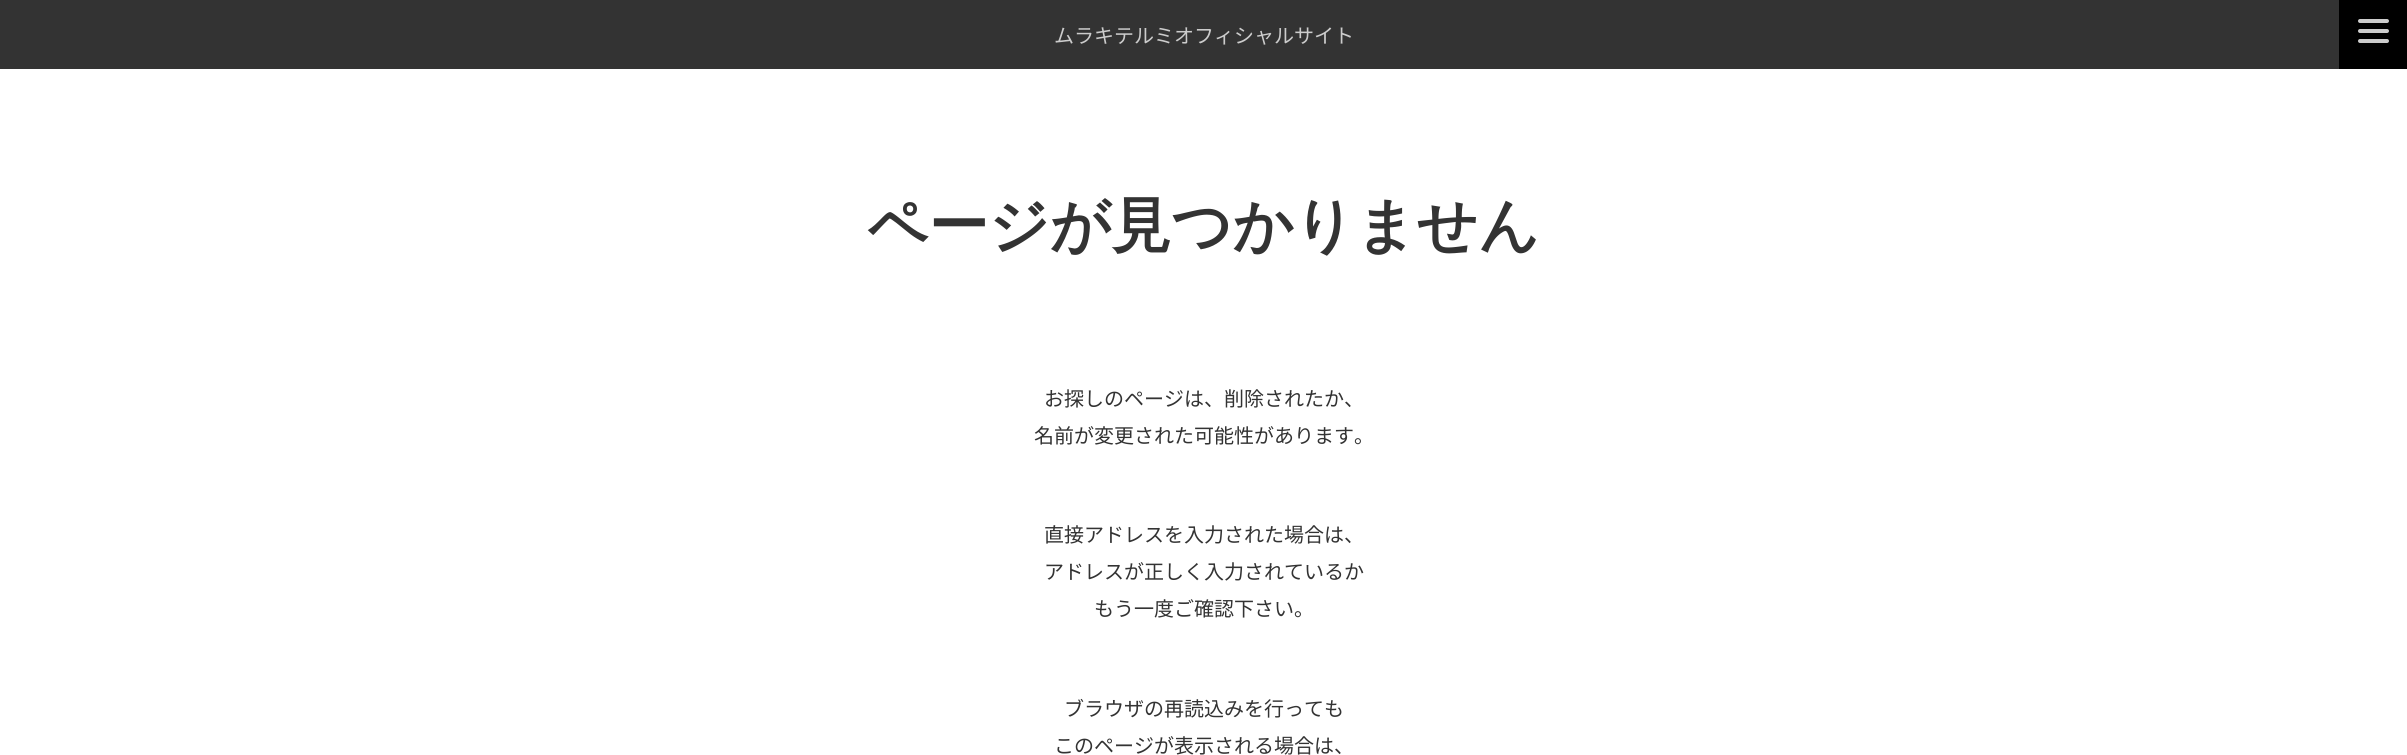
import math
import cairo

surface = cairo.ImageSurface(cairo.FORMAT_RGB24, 2407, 755)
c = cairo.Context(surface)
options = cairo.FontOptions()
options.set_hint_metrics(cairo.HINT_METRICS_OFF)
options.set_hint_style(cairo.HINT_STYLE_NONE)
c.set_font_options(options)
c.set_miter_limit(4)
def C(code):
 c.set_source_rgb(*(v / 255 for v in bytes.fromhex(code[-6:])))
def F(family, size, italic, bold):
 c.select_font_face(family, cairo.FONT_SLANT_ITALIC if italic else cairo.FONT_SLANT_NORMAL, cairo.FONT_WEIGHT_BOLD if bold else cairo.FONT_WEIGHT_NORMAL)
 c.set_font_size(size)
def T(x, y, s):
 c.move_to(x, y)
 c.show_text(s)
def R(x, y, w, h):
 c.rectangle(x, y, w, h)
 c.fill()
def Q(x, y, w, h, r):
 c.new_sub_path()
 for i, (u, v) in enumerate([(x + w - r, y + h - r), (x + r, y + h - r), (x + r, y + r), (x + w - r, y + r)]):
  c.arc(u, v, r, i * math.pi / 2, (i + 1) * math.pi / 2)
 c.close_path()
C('ffffff')
c.paint()
C('333333')
R(0,0,2339,69)
F('Noto Sans JP',20,0,0)
C('cccccc')
T(1054,43,'ムラキテルミオフィシャルサイト')
C('000000')
R(2339,0,68,69)
C('cccccc')
Q(2358,19,31,4,2)
c.fill()
Q(2358,29,31,4,2)
c.fill()
Q(2358,39,31,4,2)
c.fill()
F('WenQuanYi Zen Hei',60,0,1)
C('333333')
T(867,246,'ページが見つかりません')
F('Noto Sans JP',20,0,0)
T(1044,406,'お探しのページは、削除されたか、')
T(1034,443,'名前が変更された可能性があります。')
T(1044,542,'直接アドレスを入力された場合は、')
T(1044,579,'アドレスが正しく入力されているか')
T(1094,616,'もう一度ご確認下さい。')
T(1064,716,'ブラウザの再読込みを行っても')
T(1054,753,'このページが表示される場合は、')
surface.write_to_png('o.png')
